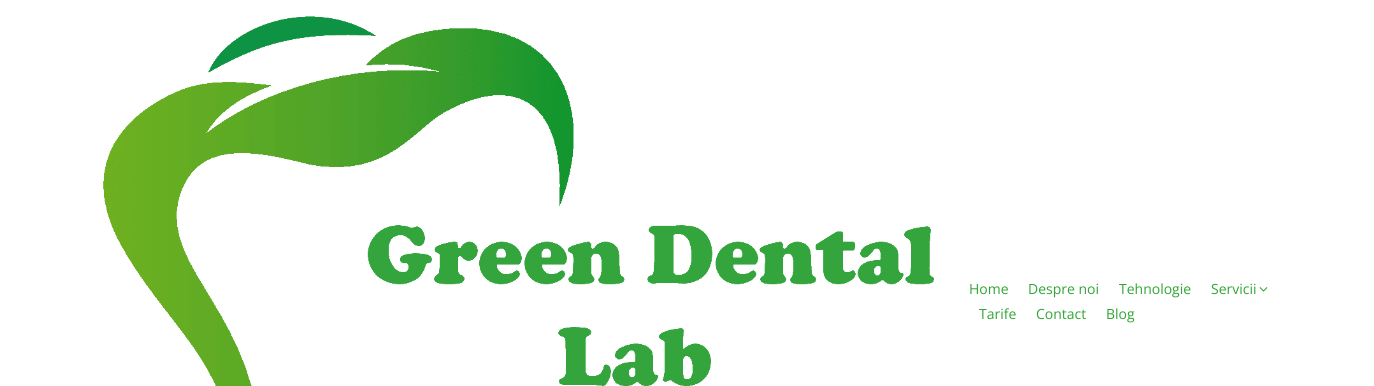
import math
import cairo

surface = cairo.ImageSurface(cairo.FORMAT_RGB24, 1374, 386)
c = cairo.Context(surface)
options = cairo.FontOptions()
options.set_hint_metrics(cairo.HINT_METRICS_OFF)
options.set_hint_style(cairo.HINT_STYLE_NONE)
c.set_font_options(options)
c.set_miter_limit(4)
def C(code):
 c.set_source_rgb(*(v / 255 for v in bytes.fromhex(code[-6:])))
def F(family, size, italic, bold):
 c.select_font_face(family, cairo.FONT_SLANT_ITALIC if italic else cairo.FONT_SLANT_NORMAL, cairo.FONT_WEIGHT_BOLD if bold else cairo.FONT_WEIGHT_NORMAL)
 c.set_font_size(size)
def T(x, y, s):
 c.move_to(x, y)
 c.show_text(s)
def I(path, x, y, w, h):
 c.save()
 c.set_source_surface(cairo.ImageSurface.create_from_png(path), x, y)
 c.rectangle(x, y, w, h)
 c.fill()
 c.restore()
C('ffffff')
c.paint()
I('1.png',103,16,831,370)
F('Open Sans',14,0,0)
C('31a535')
T(969,294,'Home')
T(1028,294,'Despre noi')
T(1119,294,'Tehnologie')
T(1211,294,'Servicii')
I('2.png',1259,287,9,5)
T(979,319,'Tarife')
T(1036,319,'Contact')
T(1106,319,'Blog')
surface.write_to_png('o.png')
